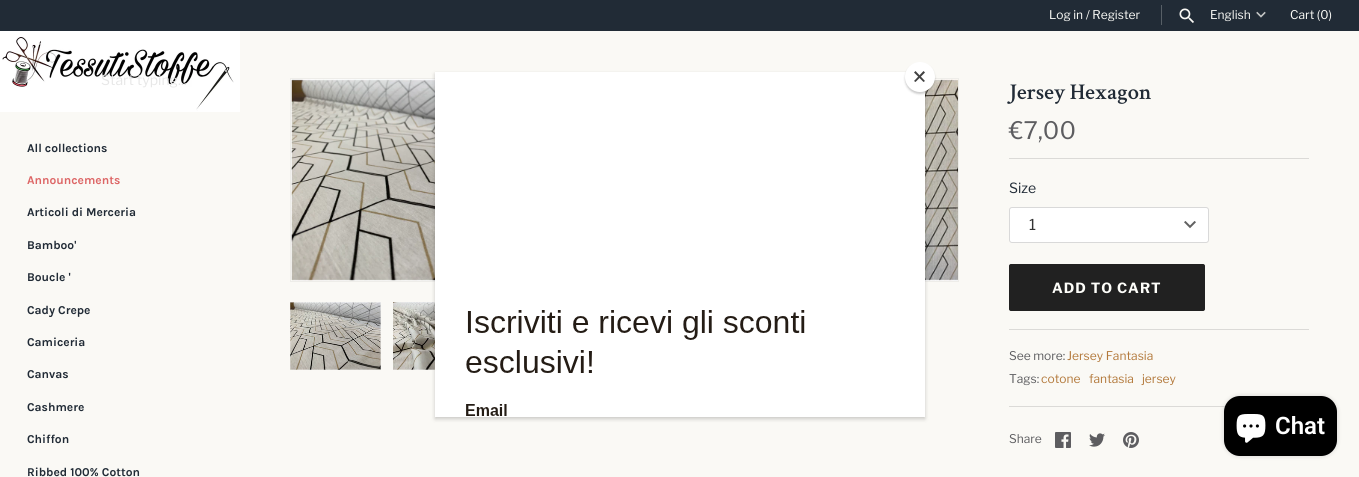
import math
import cairo

surface = cairo.ImageSurface(cairo.FORMAT_RGB24, 1359, 477)
c = cairo.Context(surface)
options = cairo.FontOptions()
options.set_hint_metrics(cairo.HINT_METRICS_OFF)
options.set_hint_style(cairo.HINT_STYLE_NONE)
c.set_font_options(options)
c.set_miter_limit(4)
def C(code):
 c.set_source_rgb(*(v / 255 for v in bytes.fromhex(code[-6:])))
def F(family, size, italic, bold):
 c.select_font_face(family, cairo.FONT_SLANT_ITALIC if italic else cairo.FONT_SLANT_NORMAL, cairo.FONT_WEIGHT_BOLD if bold else cairo.FONT_WEIGHT_NORMAL)
 c.set_font_size(size)
def T(x, y, s):
 c.move_to(x, y)
 c.show_text(s)
def L(x, y, s, letter, word):
 c.move_to(x, y)
 for ch in s:
  c.show_text(ch)
  c.rel_move_to(letter + word * (ch == ' '), 0)
def R(x, y, w, h):
 c.rectangle(x, y, w, h)
 c.fill()
def Q(x, y, w, h, r):
 c.new_sub_path()
 for i, (u, v) in enumerate([(x + w - r, y + h - r), (x + r, y + h - r), (x + r, y + r), (x + w - r, y + r)]):
  c.arc(u, v, r, i * math.pi / 2, (i + 1) * math.pi / 2)
 c.close_path()
def S(x, y, w, h, r, blur, alpha):
 c.push_group_with_content(cairo.CONTENT_ALPHA)
 c.set_operator(cairo.OPERATOR_SOURCE)
 for i in range(15, -16, -2):
  e = blur * i / 6
  if min(w, h) + 2 * e > 0:
   c.set_source_rgba(0, 0, 0, alpha * math.erfc((i - 1) / 8.5) / 2)
   Q(x - e, y - e, w + 2 * e, h + 2 * e, max(0, min(r + e + blur * .6, min(w, h) / 2 + e)))
   c.fill()
 c.mask(c.pop_group())
def I(path, x, y, w, h):
 c.save()
 c.set_source_surface(cairo.ImageSurface.create_from_png(path), x, y)
 c.rectangle(x, y, w, h)
 c.fill()
 c.restore()
C('faf9f5')
c.paint()
C('212b36')
R(0,0,1359,31)
F('Libre Franklin',12,0,0)
C('fdfdf9')
T(1049,19,'Log in / Register')
C('575f66')
R(1161,5,1,20)
I('1.png',1179,8,15,15)
C('fdfdf9')
T(1210,19,'English')
I('2.png',1256,11,10,7)
T(1290,19,'Cart (0)')
I('3.png',0,31,240,81)
F('Libre Franklin',14,0,0)
C('e7e7e7')
T(101,85,'Start typing...')
F('Karla',12,0,1)
C('212b36')
T(27,152,'All collections')
C('dd6666')
T(27,184,'Announcements')
C('212b36')
T(27,216,'Articoli di Merceria')
T(27,249,'Bamboo\'')
T(27,281,'Boucle \'')
T(27,314,'Cady Crepe')
T(27,346,'Camiceria')
T(27,378,'Canvas')
T(27,411,'Cashmere')
T(27,443,'Chiffon')
T(27,476,'Ribbed 100% Cotton')
c.rectangle(290.5,78.5,668,203)
C('eeede9')
c.set_line_width(1)
c.stroke()
I('4.png',291,79,144,202)
I('5.png',925,79,33,202)
I('6.png',290,302,91,68)
I('7.png',393,302,42,68)
F('Crimson Text SemiBold',22.5,0,0)
C('212b36')
T(1009,99,'Jersey Hexagon')
F('Libre Franklin',24,0,0)
C('5d5d60')
T(1009,139,'€7,00')
C('dbdad7')
R(1009,158,300,1)
F('Libre Franklin',14,0,0)
C('212b36')
T(1009,193,'Size')
C('ffffff')
Q(1009,207,200,36,3)
c.fill()
I('8.png',1184,221,12,8)
Q(1009.5,207.5,199,35,2.5)
c.set_source_rgba(0,0,0,0.15)
c.stroke()
F('Libre Franklin',15,0,0)
C('333333')
T(1029,230,'1')
C('212121')
Q(1009.5,264.5,195,46,1.5)
c.fill_preserve()
c.stroke()
F('Libre Franklin',14,0,1)
C('fdfdf9')
L(1052,293,'ADD TO CART',1,0)
C('dbdad7')
R(1009,329,300,1)
F('Libre Franklin',12,0,0)
C('5d5d60')
T(1009,360,'See more:')
C('b3793b')
T(1067,360,'Jersey Fantasia')
C('5d5d60')
T(1009,383,'Tags:')
C('b3793b')
T(1041,383,'cotone')
T(1089,383,'fantasia')
T(1142,383,'jersey')
C('dbdad7')
R(1009,406,217,1)
C('5d5d60')
T(1009,443,'Share')
I('9.png',1055,432,16,16)
I('10.png',1089,433,16,14)
I('11.png',1123,432,16,16)
C('000000')
S(435,74,490,345,0,2,.2)
I('12.png',435,72,490,345)
S(905,64,30,30,15,1,.2)
C('ffffff')
c.arc(920,77,15,0,2 * math.pi)
c.fill()
C('414141')
c.new_path()
c.move_to(923.5,71)
c.line_to(925,72.5)
c.line_to(915.5,82)
c.line_to(914,81)
c.close_path()
c.fill()
c.new_path()
c.move_to(914,72.5)
c.line_to(915.5,71)
c.line_to(925,81)
c.line_to(923.5,82)
c.close_path()
c.fill()
C('000000')
S(1224,396,113,60,16,2.5,.15)
C('000000')
Q(1224,396,113,60,16)
c.fill()
I('13.png',1236,414,30,29)
F('Roboto SemiBold',24,0,0)
C('ffffff')
T(1275,434,'Chat')
surface.write_to_png('o.png')
